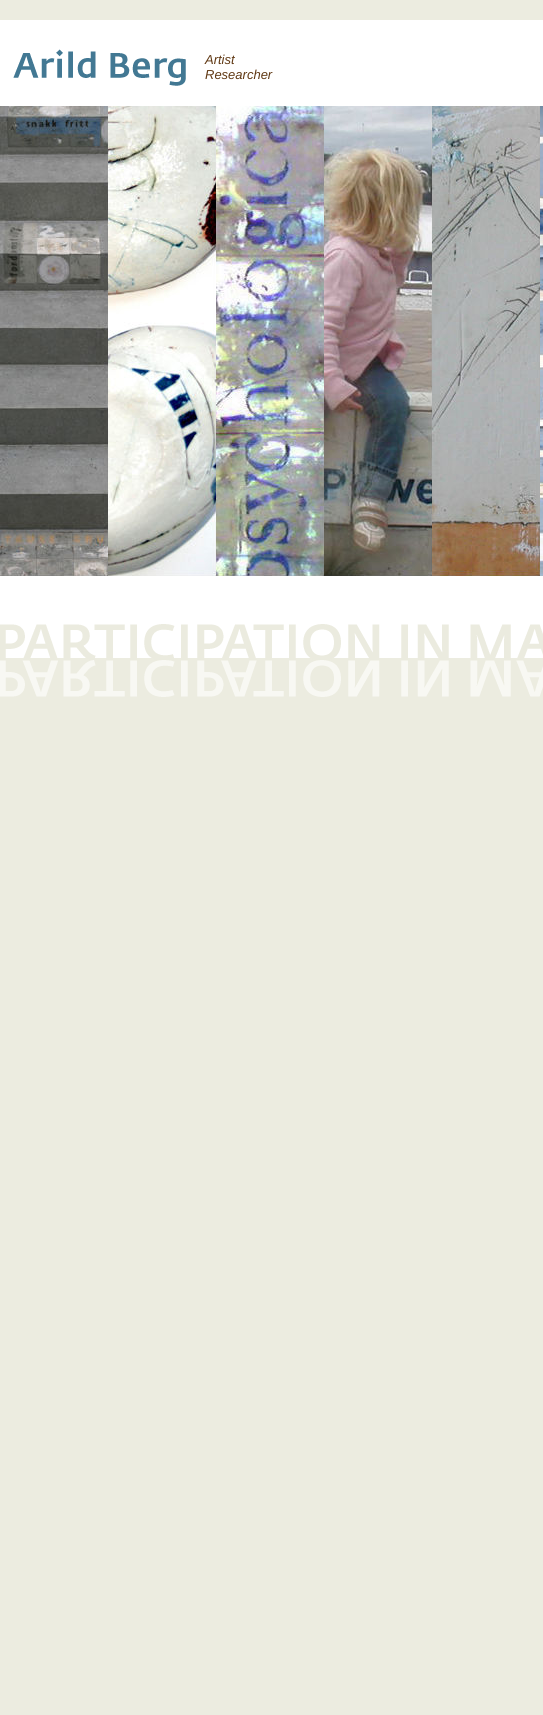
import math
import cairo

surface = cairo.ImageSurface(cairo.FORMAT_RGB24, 543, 1715)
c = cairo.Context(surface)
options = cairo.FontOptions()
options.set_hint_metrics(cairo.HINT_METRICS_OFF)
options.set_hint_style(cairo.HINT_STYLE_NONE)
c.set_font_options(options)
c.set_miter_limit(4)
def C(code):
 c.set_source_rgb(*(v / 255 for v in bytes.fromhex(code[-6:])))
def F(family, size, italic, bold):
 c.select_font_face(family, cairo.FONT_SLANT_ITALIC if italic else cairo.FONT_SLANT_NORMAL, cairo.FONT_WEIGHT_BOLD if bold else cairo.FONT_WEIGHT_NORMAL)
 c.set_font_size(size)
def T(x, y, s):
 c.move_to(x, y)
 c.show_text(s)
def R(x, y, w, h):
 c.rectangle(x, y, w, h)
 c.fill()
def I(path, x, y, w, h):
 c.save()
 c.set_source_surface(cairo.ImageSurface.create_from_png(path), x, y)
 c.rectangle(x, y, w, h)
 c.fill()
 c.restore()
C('ecece0')
c.paint()
C('ffffff')
R(0,20,543,638)
I('1.png',13,49,173,37)
F('Liberation Sans',13,1,0)
C('603813')
T(205,64,'Artist')
T(205,79,'Researcher')
I('2.png',0,106,108,470)
I('3.png',108,106,108,470)
I('4.png',216,106,108,470)
I('5.png',324,106,108,470)
I('6.png',432,106,108,470)
I('7.png',540,106,3,470)
I('8.png',0,624,543,73)
surface.write_to_png('o.png')
